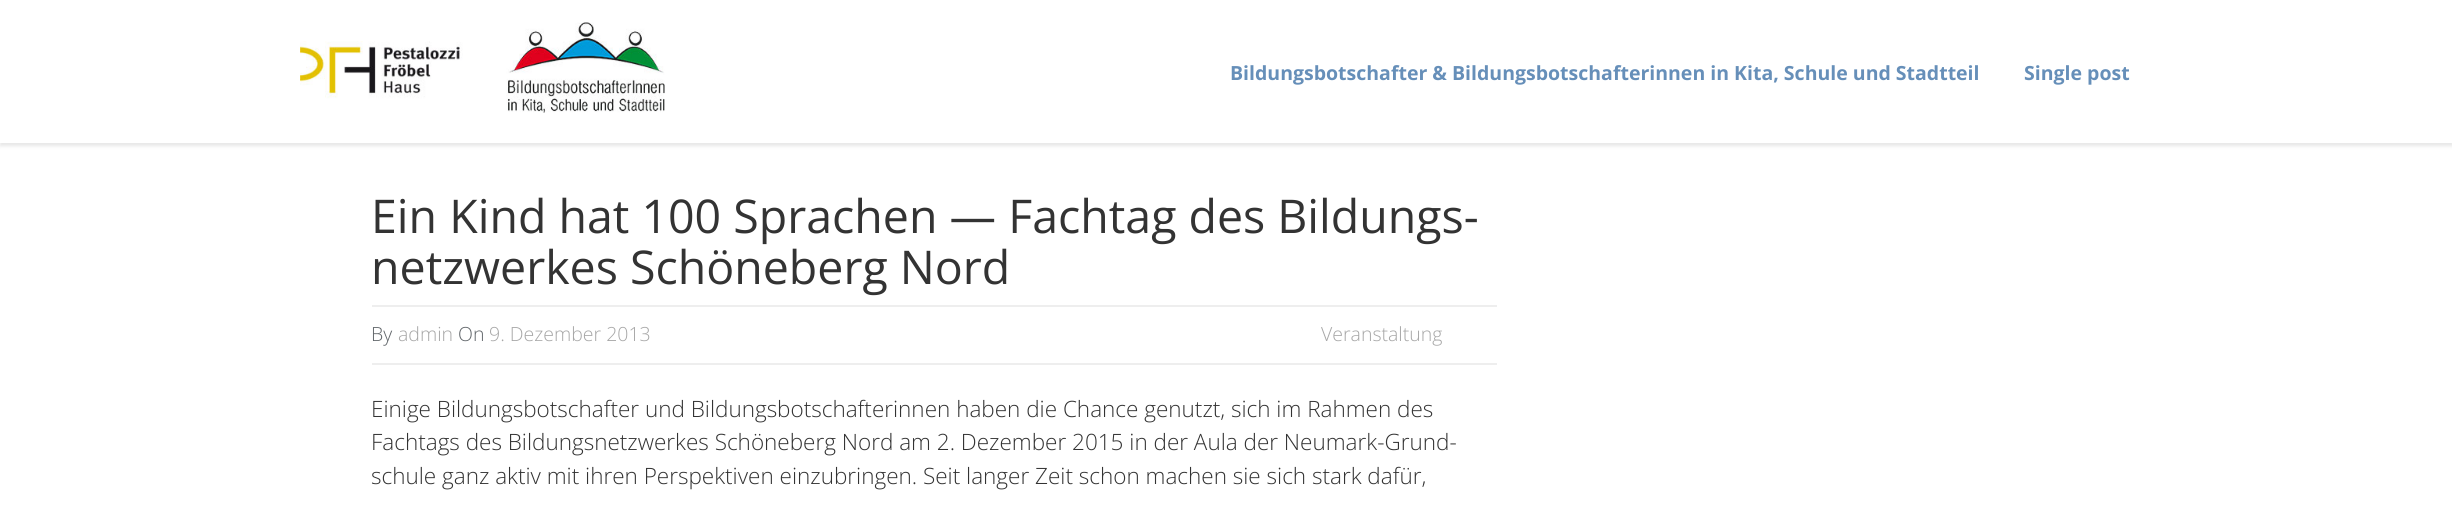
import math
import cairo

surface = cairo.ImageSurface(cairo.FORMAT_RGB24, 2452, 505)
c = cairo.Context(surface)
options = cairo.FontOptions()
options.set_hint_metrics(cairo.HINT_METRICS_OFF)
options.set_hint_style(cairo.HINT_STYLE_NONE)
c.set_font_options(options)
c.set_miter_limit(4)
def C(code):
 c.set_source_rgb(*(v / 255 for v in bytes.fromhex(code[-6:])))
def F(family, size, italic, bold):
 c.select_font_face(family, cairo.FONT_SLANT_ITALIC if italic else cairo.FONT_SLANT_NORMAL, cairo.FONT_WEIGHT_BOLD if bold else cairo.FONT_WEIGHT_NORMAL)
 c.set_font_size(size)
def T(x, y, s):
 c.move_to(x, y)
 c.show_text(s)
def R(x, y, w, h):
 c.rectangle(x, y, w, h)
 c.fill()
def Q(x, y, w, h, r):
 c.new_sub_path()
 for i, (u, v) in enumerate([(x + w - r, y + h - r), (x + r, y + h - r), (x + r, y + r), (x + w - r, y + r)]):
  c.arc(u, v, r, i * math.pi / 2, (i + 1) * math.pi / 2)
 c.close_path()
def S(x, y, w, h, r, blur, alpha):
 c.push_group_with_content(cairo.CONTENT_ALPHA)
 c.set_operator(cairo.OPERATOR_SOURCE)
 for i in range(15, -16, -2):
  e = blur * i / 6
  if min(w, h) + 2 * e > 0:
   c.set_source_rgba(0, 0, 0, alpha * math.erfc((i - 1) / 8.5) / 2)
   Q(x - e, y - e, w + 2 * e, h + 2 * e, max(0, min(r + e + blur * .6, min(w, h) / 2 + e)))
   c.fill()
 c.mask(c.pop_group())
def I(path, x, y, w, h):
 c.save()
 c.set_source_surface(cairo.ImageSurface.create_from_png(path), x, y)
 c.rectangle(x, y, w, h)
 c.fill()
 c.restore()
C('ffffff')
c.paint()
C('000000')
S(0,3,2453,143,0,2,.1)
C('ffffff')
R(0,0,2452,143)
I('1.png',300,22,365,91)
F('Open Sans',19.5,0,1)
C('668fb9')
T(1230,80,'Bildungsbotschafter & Bildungsbotschafterinnen in Kita, Schule und Stadtteil')
T(2024,80,'Single post')
F('Open Sans',46.5,0,0)
C('333333')
T(371,233,'Ein Kind hat 100 Sprachen — Fachtag des Bildungs-')
T(371,284,'netzwerkes Schöneberg Nord')
C('eeeeee')
R(372,305,1125,2)
R(372,363,1125,2)
F('Open Sans Light',19.5,0,0)
C('606569')
T(371,341,'By')
C('a6a6a6')
T(398,341,'admin')
C('606569')
T(458,341,'On')
C('a6a6a6')
T(489,341,'9. Dezember 2013')
T(1321,341,'Veranstaltung')
F('Open Sans Light',22.5,0,0)
C('333333')
T(371,417,'Einige Bildungsbotschafter und Bildungsbotschafterinnen haben die Chance genutzt, sich im Rahmen des')
T(371,450,'Fachtags des Bildungsnetzwerkes Schöneberg Nord am 2. Dezember 2015 in der Aula der Neumark-Grund-')
T(371,484,'schule ganz aktiv mit ihren Perspektiven einzubringen. Seit langer Zeit schon machen sie sich stark dafür,')
surface.write_to_png('o.png')
